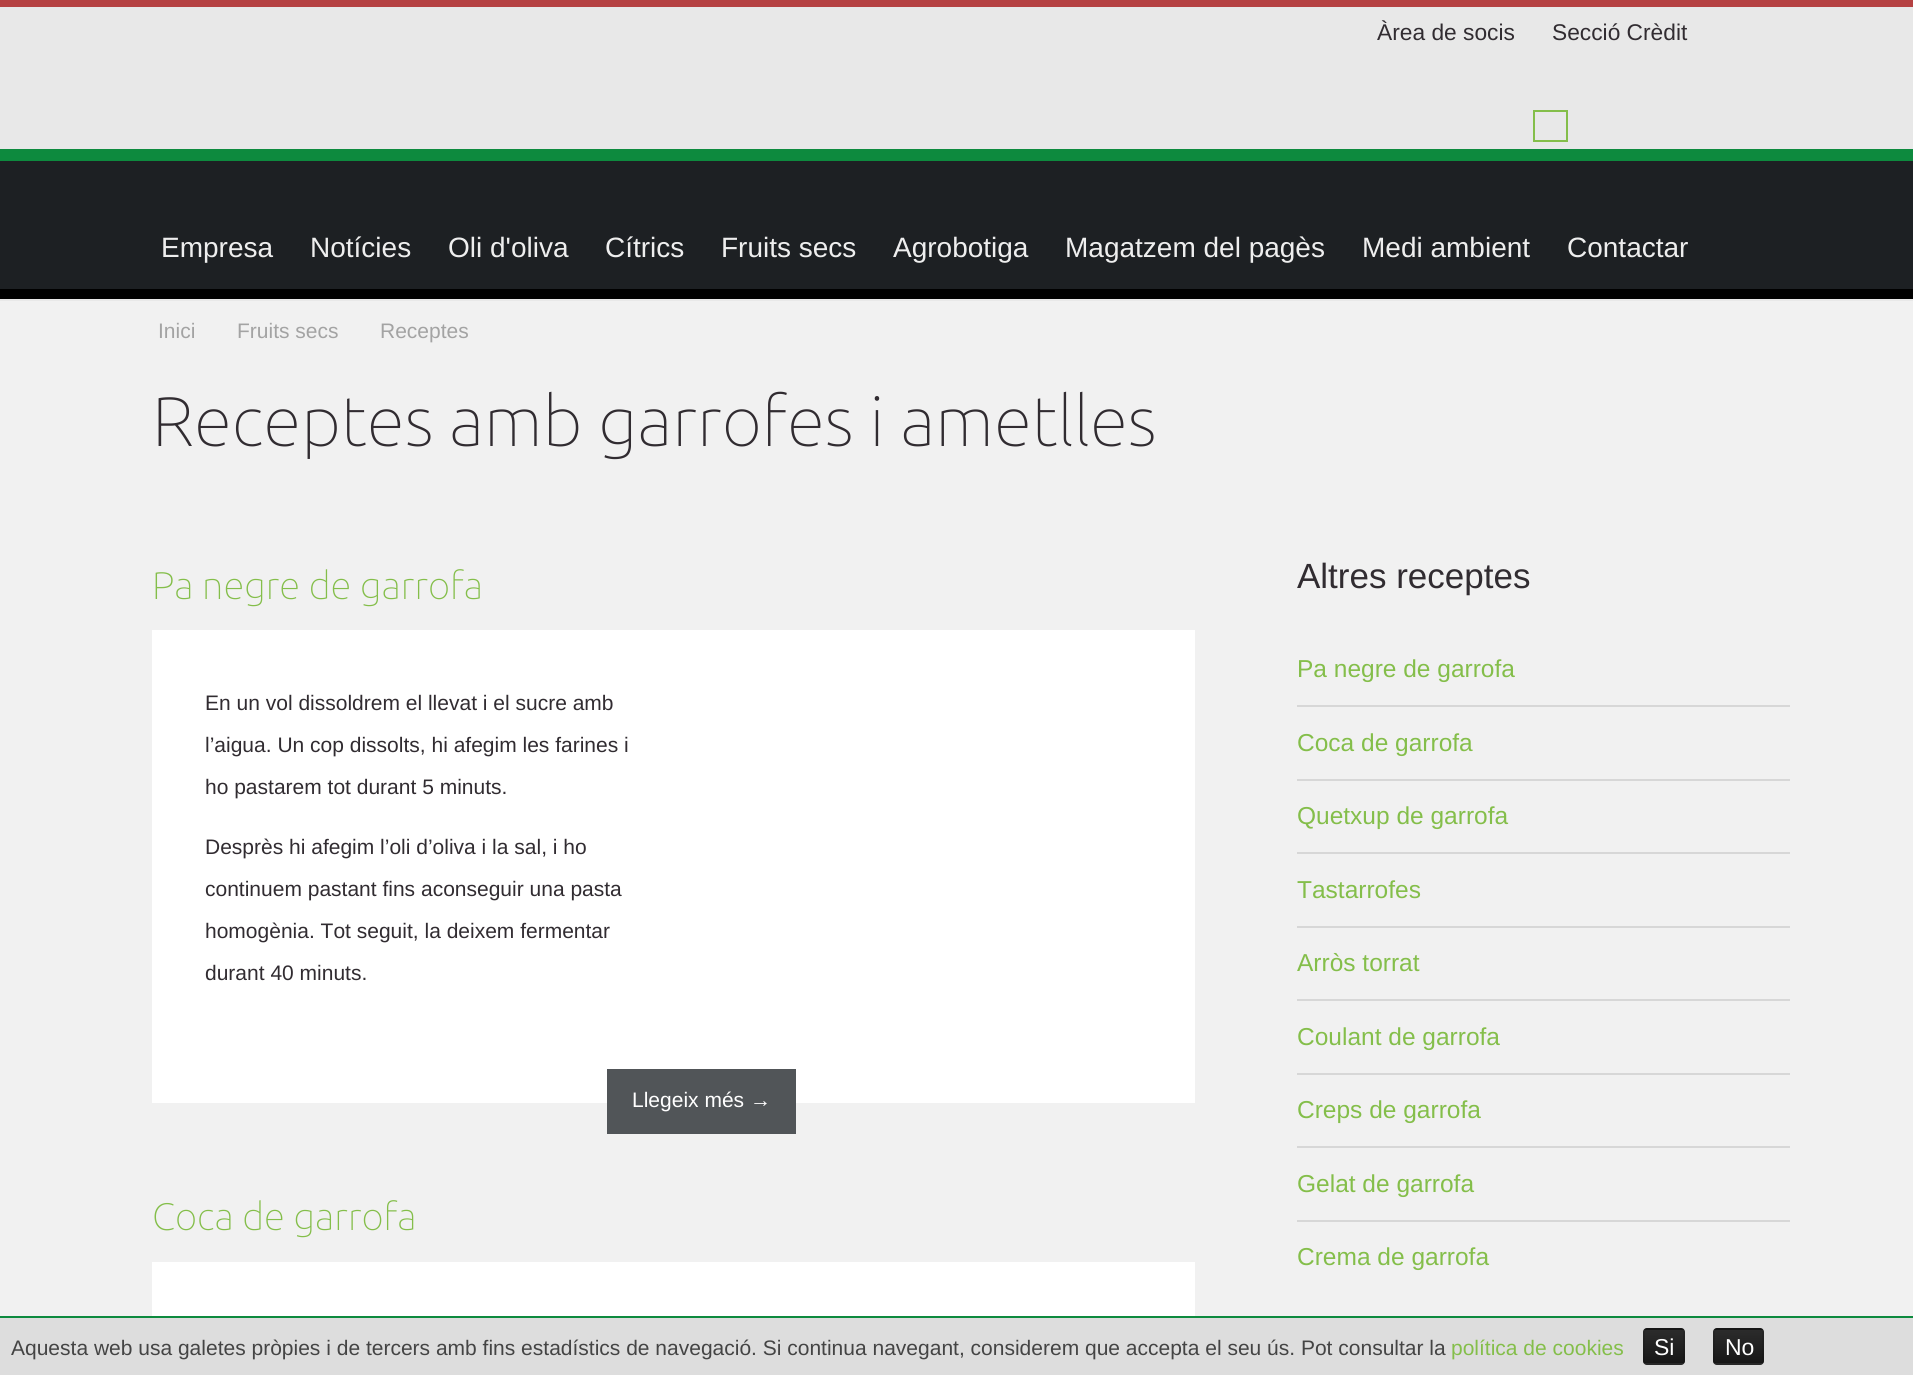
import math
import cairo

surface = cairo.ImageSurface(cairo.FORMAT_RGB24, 1913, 1375)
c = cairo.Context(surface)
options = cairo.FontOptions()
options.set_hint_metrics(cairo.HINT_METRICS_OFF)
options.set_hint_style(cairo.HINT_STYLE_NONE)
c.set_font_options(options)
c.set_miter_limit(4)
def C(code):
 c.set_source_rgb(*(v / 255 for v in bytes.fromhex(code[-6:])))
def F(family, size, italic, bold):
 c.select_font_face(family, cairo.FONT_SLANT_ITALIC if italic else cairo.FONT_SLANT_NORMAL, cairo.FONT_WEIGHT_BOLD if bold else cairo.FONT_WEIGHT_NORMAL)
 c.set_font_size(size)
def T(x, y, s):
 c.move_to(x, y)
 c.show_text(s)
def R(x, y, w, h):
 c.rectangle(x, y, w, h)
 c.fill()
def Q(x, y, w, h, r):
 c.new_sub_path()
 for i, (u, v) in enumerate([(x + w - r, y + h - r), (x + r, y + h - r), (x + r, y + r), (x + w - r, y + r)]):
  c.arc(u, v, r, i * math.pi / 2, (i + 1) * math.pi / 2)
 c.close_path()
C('f1f1f1')
c.paint()
C('e8e8e8')
R(0,7,1913,294)
C('b54142')
R(0,0,1913,7)
F('Liberation Sans',22.75,0,0)
C('312c31')
T(1377,40,'Àrea de socis')
T(1552,40,'Secció Crèdit')
c.rectangle(1534,111,33,30)
C('84be4a')
c.stroke()
C('1d2023')
R(0,161,1913,128)
C('0d8a3e')
R(0,149,1913,12)
C('000000')
R(0,289,1913,10)
F('Liberation Sans',28,0,0)
C('eeeeee')
T(161,257,'Empresa')
T(310,257,'Notícies')
T(448,257,'Oli d\'oliva')
T(605,257,'Cítrics')
T(721,257,'Fruits secs')
T(893,257,'Agrobotiga')
T(1065,257,'Magatzem del pagès')
T(1362,257,'Medi ambient')
T(1567,257,'Contactar')
F('Liberation Sans',21,0,0)
C('a3a3a3')
T(158,338,'Inici')
T(237,338,'Fruits secs')
T(380,338,'Receptes')
F('Ubuntu Thin',70,0,0)
C('312c31')
T(152,446,'Receptes amb garrofes i ametlles')
F('Ubuntu Thin',38.5,0,0)
C('84be4a')
T(152,599,'Pa negre de garrofa')
C('ffffff')
R(152,630,1043,473)
F('Liberation Sans',21,0,0)
C('312c31')
T(205,710,'En un vol dissoldrem el llevat i el sucre amb')
T(205,752,'l’aigua. Un cop dissolts, hi afegim les farines i')
T(205,794,'ho pastarem tot durant 5 minuts.')
T(205,854,'Desprès hi afegim l’oli d’oliva i la sal, i ho')
T(205,896,'continuem pastant fins aconseguir una pasta')
T(205,938,'homogènia. Tot seguit, la deixem fermentar')
T(205,980,'durant 40 minuts.')
C('515558')
R(607,1069,189,65)
C('ffffff')
T(632,1107,'Llegeix més →')
F('Ubuntu Thin',38.5,0,0)
C('84be4a')
T(152,1230,'Coca de garrofa')
C('ffffff')
R(152,1262,1043,54)
F('Liberation Sans',35,0,0)
C('312c31')
T(1297,588,'Altres receptes')
C('d7d7d7')
R(1297,705,493,2)
F('Liberation Sans',24.5,0,0)
C('84be4a')
T(1297,677,'Pa negre de garrofa')
C('d7d7d7')
R(1297,779,493,2)
C('84be4a')
T(1297,751,'Coca de garrofa')
C('d7d7d7')
R(1297,852,493,2)
C('84be4a')
T(1297,824,'Quetxup de garrofa')
C('d7d7d7')
R(1297,926,493,2)
C('84be4a')
T(1297,898,'Tastarrofes')
C('d7d7d7')
R(1297,999,493,2)
C('84be4a')
T(1297,971,'Arròs torrat')
C('d7d7d7')
R(1297,1073,493,2)
C('84be4a')
T(1297,1045,'Coulant de garrofa')
C('d7d7d7')
R(1297,1146,493,2)
C('84be4a')
T(1297,1118,'Creps de garrofa')
C('d7d7d7')
R(1297,1220,493,2)
C('84be4a')
T(1297,1192,'Gelat de garrofa')
T(1297,1265,'Crema de garrofa')
C('dddddd')
R(0,1318,1913,57)
C('0d8a3e')
R(0,1316,1913,2)
F('Liberation Sans',21,0,0)
C('444444')
T(11,1355,'Aquesta web usa galetes pròpies i de tercers amb fins estadístics de navegació. Si continua navegant, considerem que accepta el seu ús. Pot consultar la')
C('84be4a')
T(1451,1355,'política de cookies')
C('191919')
Q(1643,1328,42,37,4)
c.fill()
c.save()
Q(1643,1328,42,37,4)
c.clip()
gradient = cairo.LinearGradient(1645,1330,1645,1297)
gradient.add_color_stop_rgba(0,0,0,0,.08)
gradient.add_color_stop_rgba(.5,0.502,0.502,0.502,.08)
gradient.add_color_stop_rgba(1,1,1,1,.08)
c.set_source(gradient)
R(1643,1328,42,2)
c.restore()
gradient = cairo.LinearGradient(1645,1363,1645,1330)
gradient.add_color_stop_rgba(0,0,0,0,.08)
gradient.add_color_stop_rgba(.5,0.502,0.502,0.502,.08)
gradient.add_color_stop_rgba(1,1,1,1,.08)
c.set_source(gradient)
R(1643,1330,42,33)
c.save()
Q(1643,1328,42,37,4)
c.clip()
gradient = cairo.LinearGradient(1645,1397,1645,1363)
gradient.add_color_stop_rgba(0,0,0,0,.08)
gradient.add_color_stop_rgba(.5,0.502,0.502,0.502,.08)
gradient.add_color_stop_rgba(1,1,1,1,.08)
c.set_source(gradient)
R(1643,1363,42,2)
c.restore()
Q(1644,1329,40,35,3)
c.set_source_rgba(0,0,0,0.1)
c.stroke()
F('Liberation Sans',23,0,0)
C('ffffff')
T(1654,1355,'Si')
C('191919')
Q(1713,1328,51,37,4)
c.fill()
c.save()
Q(1713,1328,51,37,4)
c.clip()
gradient = cairo.LinearGradient(1715,1330,1715,1297)
gradient.add_color_stop_rgba(0,0,0,0,.08)
gradient.add_color_stop_rgba(.5,0.502,0.502,0.502,.08)
gradient.add_color_stop_rgba(1,1,1,1,.08)
c.set_source(gradient)
R(1713,1328,51,2)
c.restore()
gradient = cairo.LinearGradient(1715,1363,1715,1330)
gradient.add_color_stop_rgba(0,0,0,0,.08)
gradient.add_color_stop_rgba(.5,0.502,0.502,0.502,.08)
gradient.add_color_stop_rgba(1,1,1,1,.08)
c.set_source(gradient)
R(1713,1330,51,33)
c.save()
Q(1713,1328,51,37,4)
c.clip()
gradient = cairo.LinearGradient(1715,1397,1715,1363)
gradient.add_color_stop_rgba(0,0,0,0,.08)
gradient.add_color_stop_rgba(.5,0.502,0.502,0.502,.08)
gradient.add_color_stop_rgba(1,1,1,1,.08)
c.set_source(gradient)
R(1713,1363,51,2)
c.restore()
Q(1714,1329,49,35,3)
c.set_source_rgba(0,0,0,0.1)
c.stroke()
C('ffffff')
T(1725,1355,'No')
surface.write_to_png('o.png')
